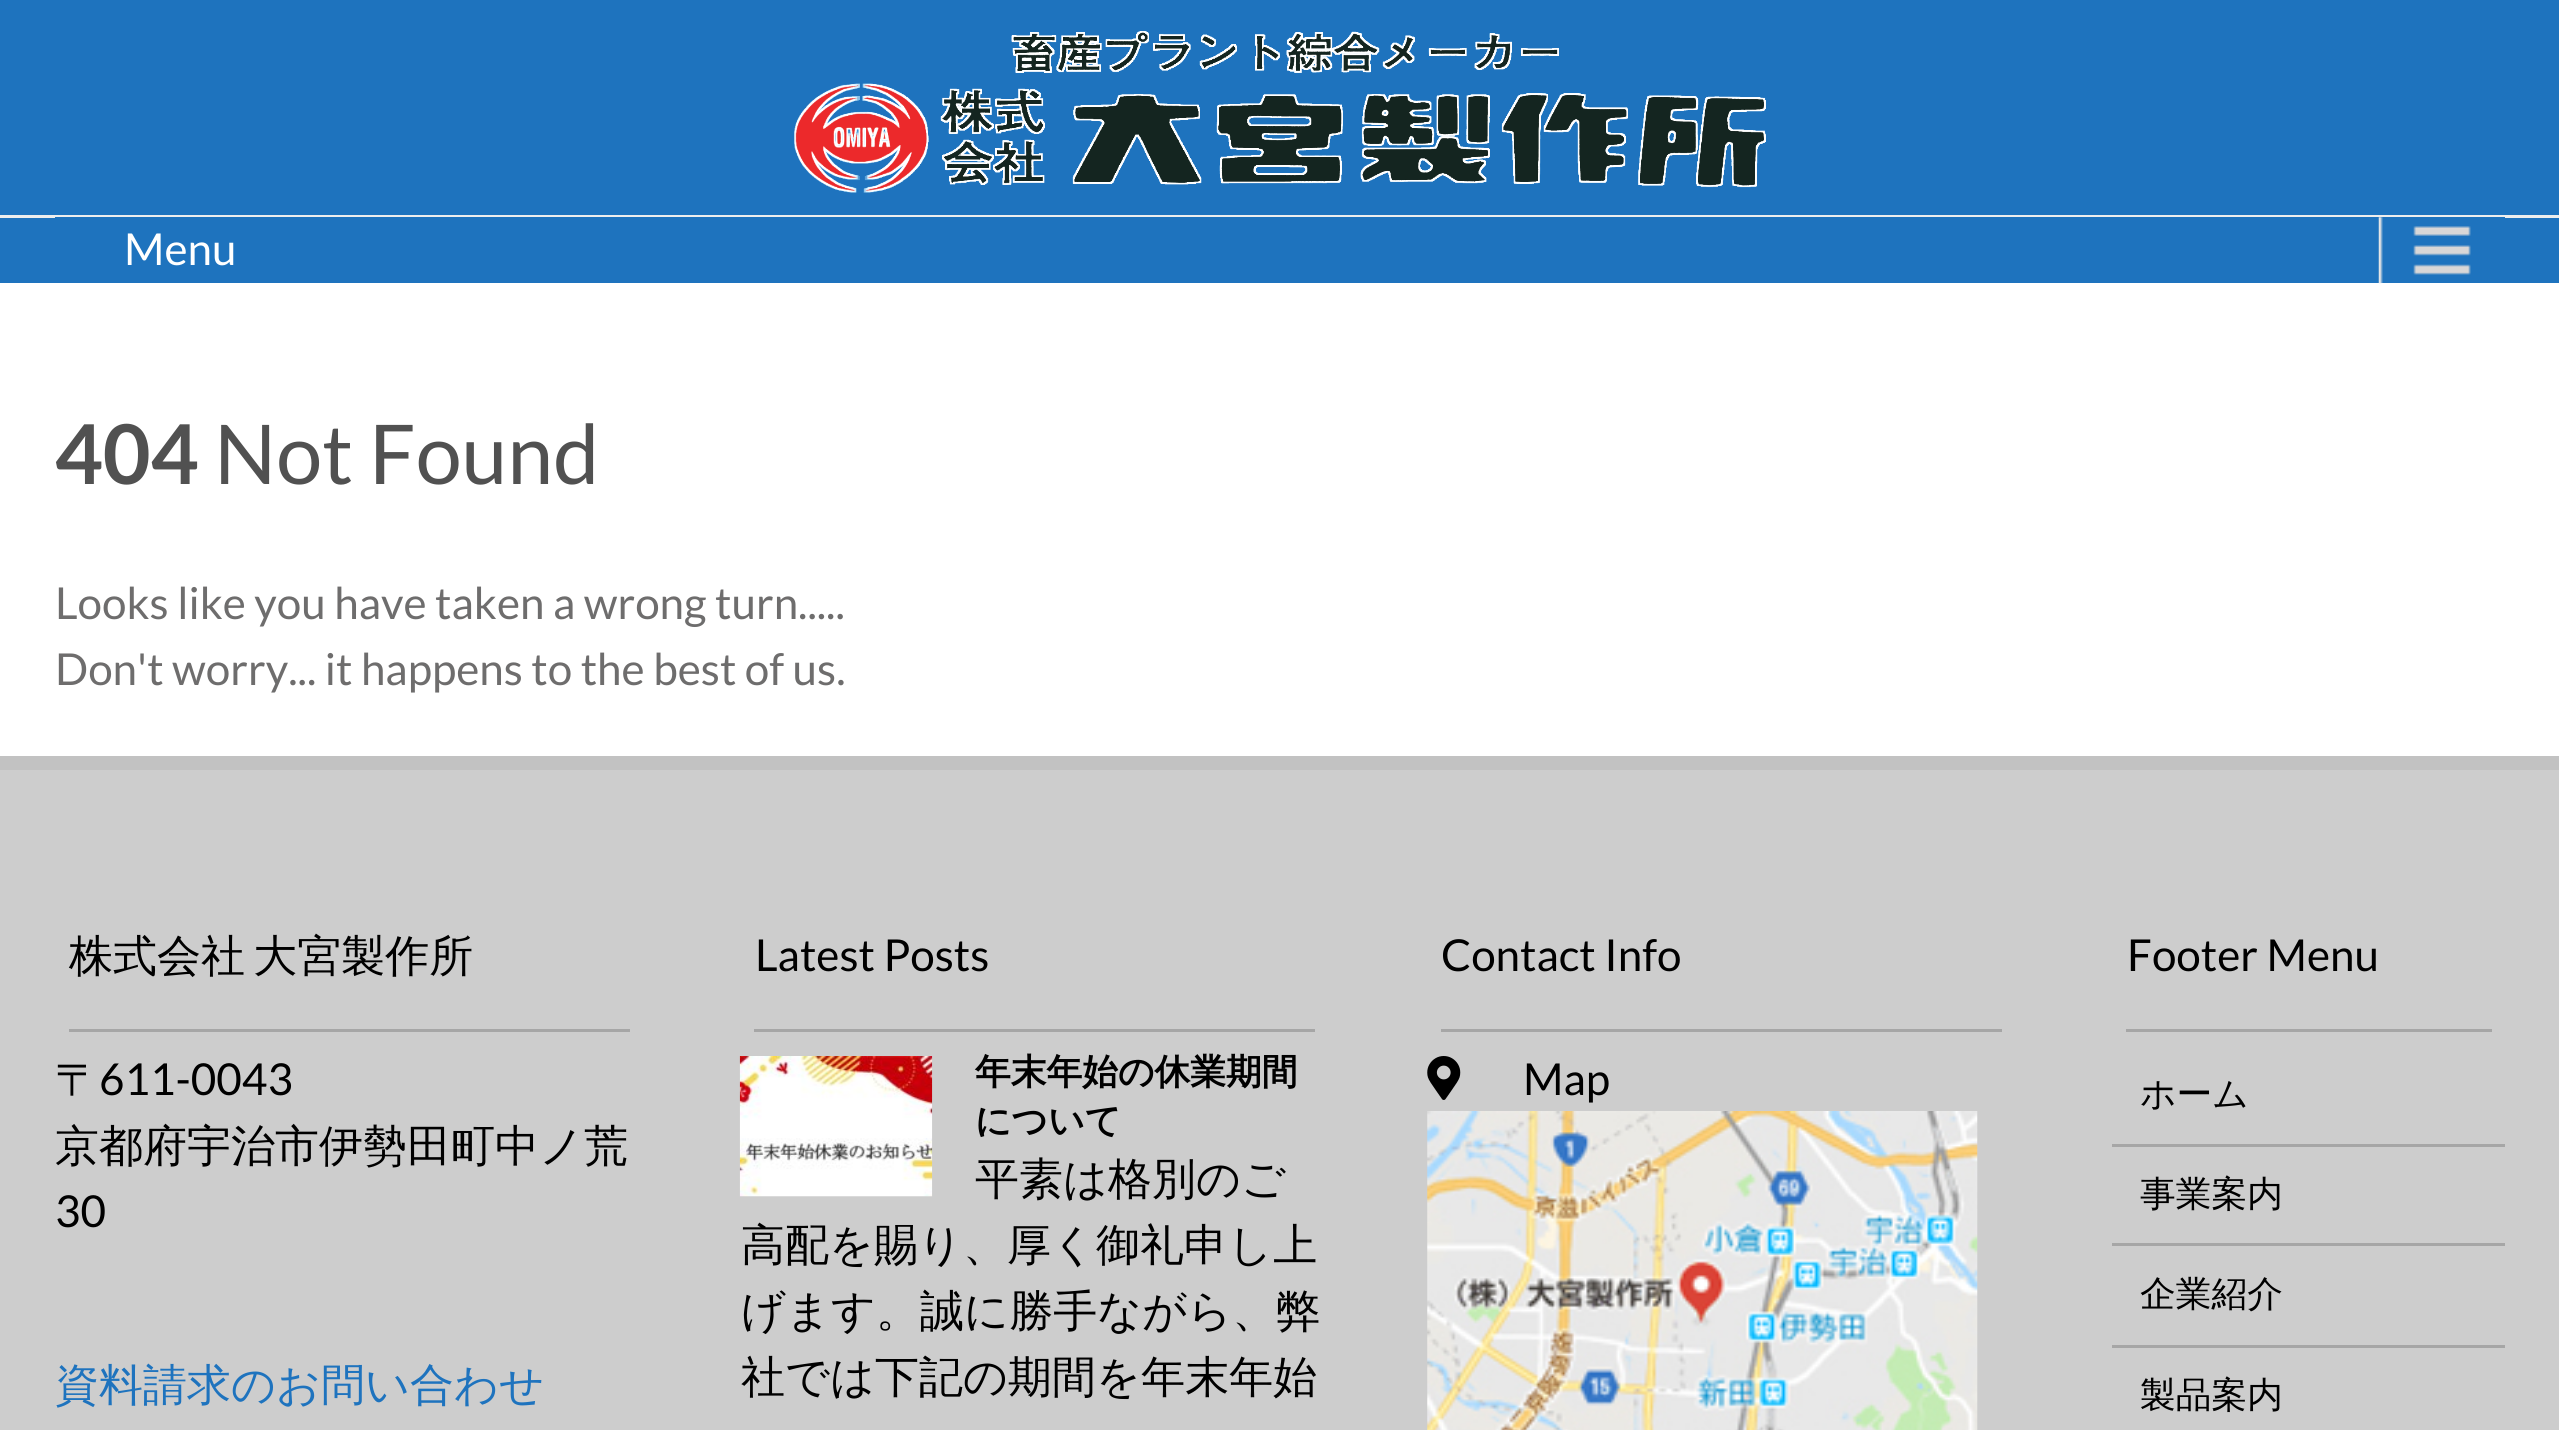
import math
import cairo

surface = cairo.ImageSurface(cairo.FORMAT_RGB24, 2559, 1430)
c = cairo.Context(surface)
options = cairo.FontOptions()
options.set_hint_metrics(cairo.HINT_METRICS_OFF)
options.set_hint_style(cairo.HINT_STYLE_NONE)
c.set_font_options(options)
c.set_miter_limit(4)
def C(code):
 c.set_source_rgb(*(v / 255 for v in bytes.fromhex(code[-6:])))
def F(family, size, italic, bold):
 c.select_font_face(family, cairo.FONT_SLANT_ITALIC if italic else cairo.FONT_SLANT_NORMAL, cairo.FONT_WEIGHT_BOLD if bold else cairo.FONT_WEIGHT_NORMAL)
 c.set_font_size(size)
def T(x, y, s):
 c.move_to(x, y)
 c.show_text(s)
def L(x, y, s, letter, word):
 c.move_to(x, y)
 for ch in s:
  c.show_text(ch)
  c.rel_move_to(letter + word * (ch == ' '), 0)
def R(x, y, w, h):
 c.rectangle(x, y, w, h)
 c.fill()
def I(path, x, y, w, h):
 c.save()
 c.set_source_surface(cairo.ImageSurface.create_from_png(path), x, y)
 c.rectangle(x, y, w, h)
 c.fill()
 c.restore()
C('ffffff')
c.paint()
C('1e73be')
R(0,0,2559,283)
I('1.png',794,31,972,162)
C('eeeeee')
R(0,215,2559,3)
C('1e73be')
R(55,217,2450,1)
I('2.png',2378,217,93,67)
F('Lato',44,0,0)
C('ffffff')
T(124,265,'Menu')
F('Lato',82.5,0,1)
C('515151')
T(55,484,'404')
F('Lato',82.5,0,0)
T(214,484,'Not Found')
F('Lato',44,0,0)
C('6e6d6d')
T(55,619,'Looks like you have taken a wrong turn.....')
T(55,685,'Don\'t worry... it happens to the best of us.')
C('cdcdcd')
R(0,770,2559,660)
C('c2c2c2')
R(0,756,2559,14)
C('a6a6a6')
R(69,1029,561,3)
F('WenQuanYi Zen Hei Medium',44,0,0)
C('000000')
L(69,971,'株式会社 大宮製作所',0,-5)
T(55,1095,'〒')
F('Lato',44,0,0)
T(99,1095,'611-0043')
F('WenQuanYi Zen Hei Medium',44,0,0)
T(55,1161,'京都府宇治市伊勢田町中ノ荒')
F('Lato',44,0,0)
T(55,1227,'30')
F('WenQuanYi Zen Hei Medium',44,0,0)
C('1e73be')
T(55,1400,'資料請求のお問い合わせ')
C('a6a6a6')
R(754,1029,561,3)
F('Lato',44,0,0)
C('000000')
T(755,971,'Latest Posts')
I('3.png',739,1056,194,141)
F('WenQuanYi Zen Hei',35.75,0,1)
T(975,1084,'年末年始の休業期間')
T(975,1133,'について')
F('WenQuanYi Zen Hei Medium',44,0,0)
T(975,1194,'平素は格別のご')
T(741,1260,'高配を賜り、厚く御礼申し上')
T(741,1326,'げます。誠に勝手ながら、弊')
T(741,1392,'社では下記の期間を年末年始')
C('a6a6a6')
R(1441,1029,561,3)
F('Lato',44,0,0)
C('000000')
T(1441,971,'Contact Info')
I('4.png',1427,1056,34,44)
T(1523,1095,'Map')
I('5.png',1427,1111,551,319)
C('a6a6a6')
R(2126,1029,366,3)
C('000000')
T(2127,971,'Footer Menu')
C('a6a6a6')
R(2112,1144,393,3)
F('WenQuanYi Zen Hei Medium',35.75,0,0)
C('000000')
T(2140,1106,'ホーム')
C('a6a6a6')
R(2112,1243,393,3)
C('000000')
T(2140,1206,'事業案内')
C('a6a6a6')
R(2112,1345,393,3)
C('000000')
T(2140,1306,'企業紹介')
T(2140,1407,'製品案内')
surface.write_to_png('o.png')
